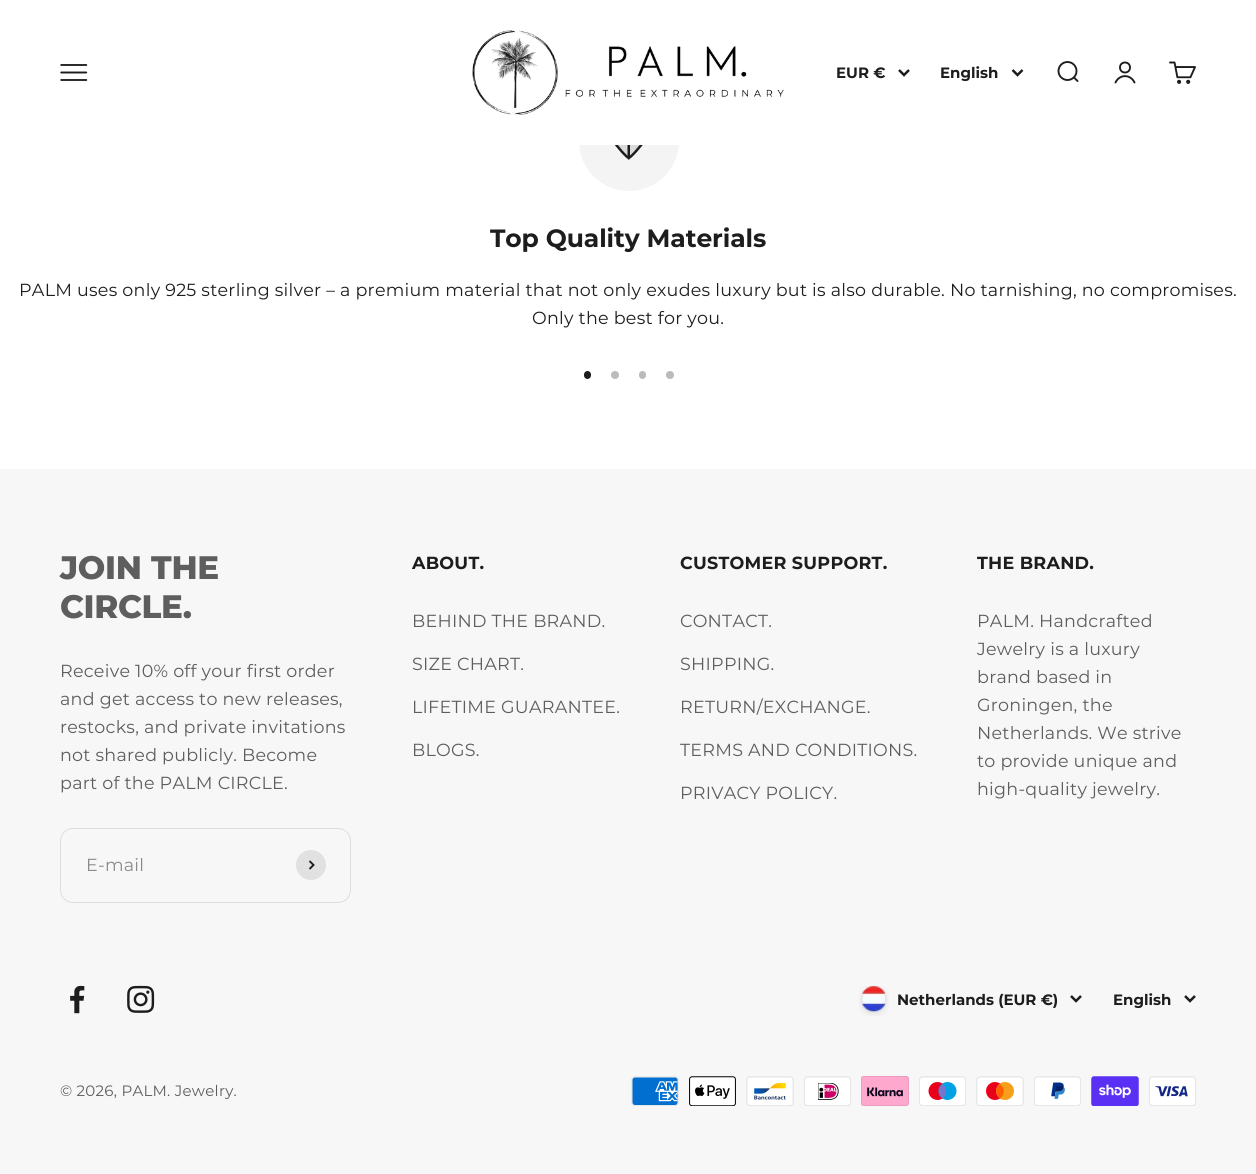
import math
import cairo

surface = cairo.ImageSurface(cairo.FORMAT_RGB24, 1256, 1174)
c = cairo.Context(surface)
options = cairo.FontOptions()
options.set_hint_metrics(cairo.HINT_METRICS_OFF)
options.set_hint_style(cairo.HINT_STYLE_NONE)
c.set_font_options(options)
c.set_miter_limit(4)
def C(code):
 c.set_source_rgb(*(v / 255 for v in bytes.fromhex(code[-6:])))
def F(family, size, italic, bold):
 c.select_font_face(family, cairo.FONT_SLANT_ITALIC if italic else cairo.FONT_SLANT_NORMAL, cairo.FONT_WEIGHT_BOLD if bold else cairo.FONT_WEIGHT_NORMAL)
 c.set_font_size(size)
def T(x, y, s):
 c.move_to(x, y)
 c.show_text(s)
def L(x, y, s, letter, word):
 c.move_to(x, y)
 for ch in s:
  c.show_text(ch)
  c.rel_move_to(letter + word * (ch == ' '), 0)
def R(x, y, w, h):
 c.rectangle(x, y, w, h)
 c.fill()
def Q(x, y, w, h, r):
 c.new_sub_path()
 for i, (u, v) in enumerate([(x + w - r, y + h - r), (x + r, y + h - r), (x + r, y + r), (x + w - r, y + r)]):
  c.arc(u, v, r, i * math.pi / 2, (i + 1) * math.pi / 2)
 c.close_path()
def I(path, x, y, w, h):
 c.save()
 c.set_source_surface(cairo.ImageSurface.create_from_png(path), x, y)
 c.rectangle(x, y, w, h)
 c.fill()
 c.restore()
C('ffffff')
c.paint()
C('f4f4f4')
c.arc(629,141,50,0,2 * math.pi)
c.fill()
C('ffffff')
R(579,91,100,54)
I('1.png',60,64,28,17)
I('2.png',472,30,312,85)
F('Montserrat',15,0,1)
C('1d1d1d')
T(836,78,'EUR €')
c.new_path()
c.move_to(899,70)
c.line_to(904,75)
c.line_to(909,70)
c.set_line_width(2.5)
c.stroke()
T(940,78,'English')
c.new_path()
c.move_to(1012.5,70)
c.line_to(1017.5,75)
c.line_to(1022.5,70)
c.stroke()
c.arc(1067.5,71,9,0,2 * math.pi)
c.set_line_width(1.9)
c.stroke()
c.new_path()
c.move_to(1074,77.5)
c.line_to(1077.5,81)
c.set_line_cap(cairo.LINE_CAP_ROUND)
c.set_line_join(cairo.LINE_JOIN_ROUND)
c.stroke()
c.arc(1125,67.5,5,0,2 * math.pi)
c.set_line_cap(cairo.LINE_CAP_BUTT)
c.set_line_join(cairo.LINE_JOIN_MITER)
c.stroke()
c.new_path()
c.move_to(1115.5,82.5)
c.curve_to(1119.5,74,1130.5,74,1134.5,82.5)
c.set_line_cap(cairo.LINE_CAP_ROUND)
c.stroke()
I('3.png',1169,61,27,23)
I('4.png',614,145,29,15)
F('Montserrat',25,0,1)
L(490,247,'Top Quality Materials',-.1,0)
F('Montserrat',17.5,0,0)
L(19,296,'PALM uses only 925 sterling silver – a premium material that not only exudes luxury but is also durable. No tarnishing, no compromises.',.26,0)
L(532,324,'Only the best for you.',.26,0)
Q(584,371,7,8,3.5)
c.fill()
C('bbbbbb')
c.arc(615,375,4,0,2 * math.pi)
c.fill()
Q(639,371,7,8,3.5)
c.fill()
c.arc(670,375,4,0,2 * math.pi)
c.fill()
C('f7f7f7')
R(0,469,1256,705)
F('Montserrat ExtraBold',32.5,0,0)
C('5e5e5e')
L(60,579,'JOIN THE',-.25,0)
L(60,618,'CIRCLE.',-.25,0)
F('Montserrat',17.5,0,0)
L(60,677,'Receive 10% off your first order',.26,0)
L(60,705,'and get access to new releases,',.26,0)
L(60,733,'restocks, and private invitations',.26,0)
L(60,761,'not shared publicly. Become',.26,0)
L(60,789,'part of the PALM CIRCLE.',.26,0)
Q(60.5,828.5,290,74,12.5)
C('dddddd')
c.set_line_width(1)
c.set_line_cap(cairo.LINE_CAP_BUTT)
c.stroke()
C('8a8a8a')
L(86,871,'E-mail',.26,0)
C('e1e1e1')
c.new_path()
c.arc(311,865,15,0,2 * math.pi)
c.fill()
c.new_path()
c.move_to(309.5,869)
c.line_to(313.5,865)
c.line_to(309.5,861)
C('1d1d1d')
c.set_line_width(1.9)
c.stroke()
F('Montserrat',17.5,0,1)
L(412,569,'ABOUT.',.26,0)
F('Montserrat',17.5,0,0)
C('5e5e5e')
L(412,627,'BEHIND THE BRAND.',.26,0)
L(412,670,'SIZE CHART.',.26,0)
L(412,713,'LIFETIME GUARANTEE.',.26,0)
L(412,756,'BLOGS.',.26,0)
F('Montserrat',17.5,0,1)
C('1d1d1d')
L(680,569,'CUSTOMER SUPPORT.',.26,0)
F('Montserrat',17.5,0,0)
C('5e5e5e')
L(680,627,'CONTACT.',.26,0)
L(680,670,'SHIPPING.',.26,0)
L(680,713,'RETURN/EXCHANGE.',.26,0)
L(680,756,'TERMS AND CONDITIONS.',.26,0)
L(680,799,'PRIVACY POLICY.',.26,0)
F('Montserrat',17.5,0,1)
C('1d1d1d')
L(977,569,'THE BRAND.',.26,0)
F('Montserrat',17.5,0,0)
C('5e5e5e')
L(977,627,'PALM. Handcrafted',.26,0)
L(977,655,'Jewelry is a luxury',.26,0)
L(977,683,'brand based in',.26,0)
L(977,711,'Groningen, the',.26,0)
L(977,739,'Netherlands. We strive',.26,0)
L(977,767,'to provide unique and',.26,0)
L(977,795,'high-quality jewelry.',.26,0)
I('5.png',70,985,15,29)
I('6.png',127,985,28,28)
I('7.png',859,986,30,30)
F('Montserrat',15,0,1)
C('1d1d1d')
T(897,1005,'Netherlands (EUR €)')
c.new_path()
c.move_to(1071,996)
c.line_to(1076,1001)
c.line_to(1081,996)
c.set_line_width(2.5)
c.stroke()
T(1113,1005,'English')
c.new_path()
c.move_to(1185,996)
c.line_to(1190,1001)
c.line_to(1195,996)
c.stroke()
F('Montserrat',15,0,0)
C('5e5e5e')
L(60,1096,'© 2026, PALM. Jewelry.',.26,0)
I('8.png',631,1076,48,30)
I('9.png',689,1076,47,30)
I('10.png',746,1076,48,30)
I('11.png',804,1076,47,30)
I('12.png',861,1076,48,30)
I('13.png',919,1076,47,30)
I('14.png',976,1076,48,30)
I('15.png',1034,1076,47,30)
I('16.png',1091,1076,48,30)
I('17.png',1149,1076,47,30)
surface.write_to_png('o.png')
